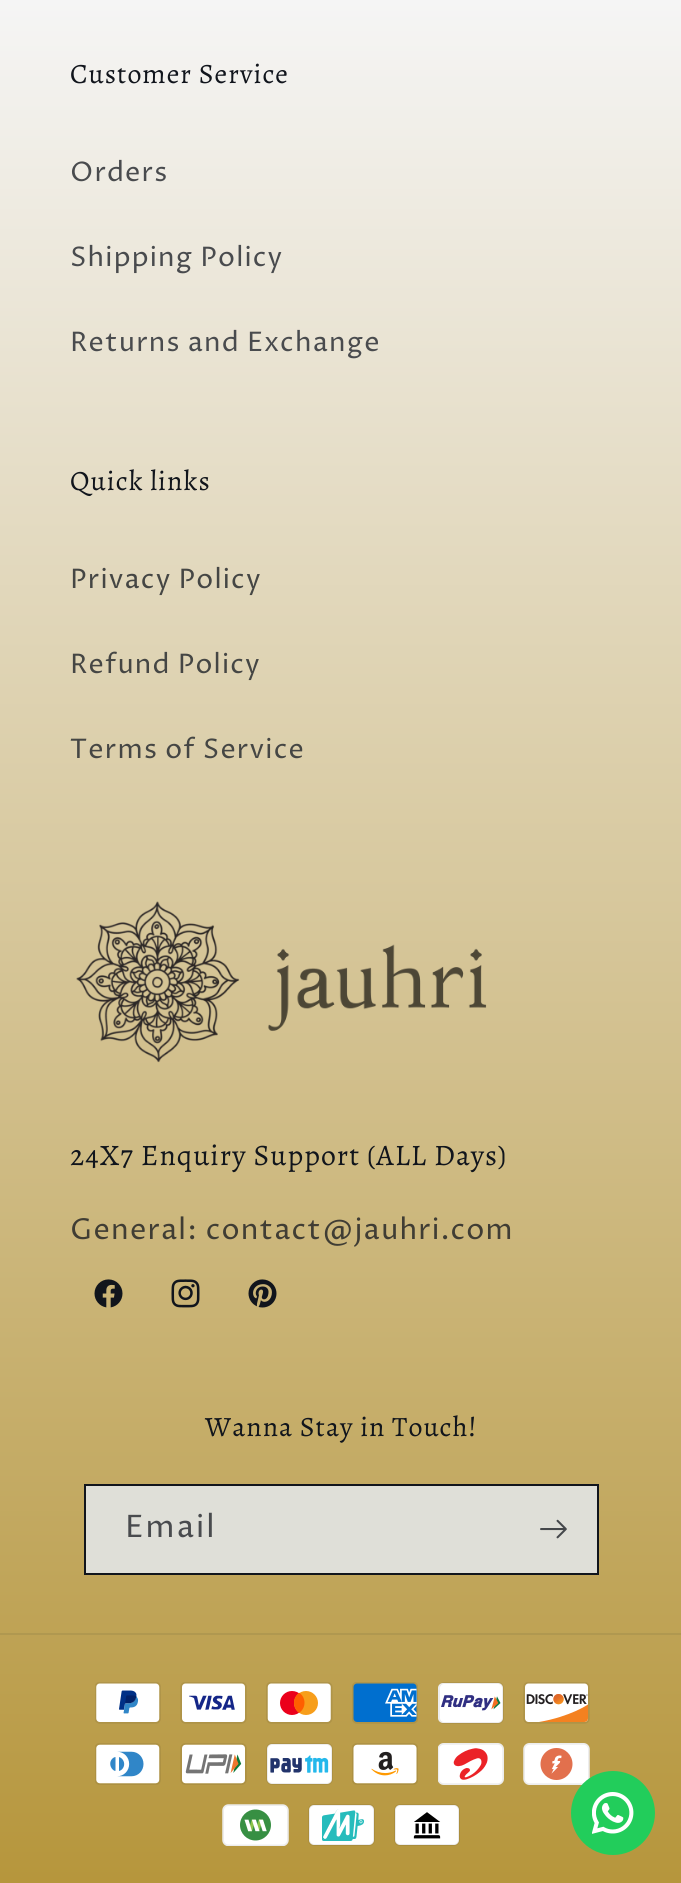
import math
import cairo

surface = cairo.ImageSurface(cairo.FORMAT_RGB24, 681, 1883)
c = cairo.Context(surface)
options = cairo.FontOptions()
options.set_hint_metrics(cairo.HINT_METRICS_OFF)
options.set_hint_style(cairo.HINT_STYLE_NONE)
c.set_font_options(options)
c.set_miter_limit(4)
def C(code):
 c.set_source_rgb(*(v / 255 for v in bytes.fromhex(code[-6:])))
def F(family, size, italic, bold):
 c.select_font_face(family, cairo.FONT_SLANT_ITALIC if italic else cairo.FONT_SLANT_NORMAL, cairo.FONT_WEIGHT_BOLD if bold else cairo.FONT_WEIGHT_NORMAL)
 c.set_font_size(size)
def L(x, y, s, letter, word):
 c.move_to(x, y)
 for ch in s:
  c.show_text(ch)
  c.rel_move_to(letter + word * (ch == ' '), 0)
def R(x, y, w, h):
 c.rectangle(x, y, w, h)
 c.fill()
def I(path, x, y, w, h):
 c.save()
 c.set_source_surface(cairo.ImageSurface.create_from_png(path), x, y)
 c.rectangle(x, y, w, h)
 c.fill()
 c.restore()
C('ffffff')
c.paint()
gradient = cairo.LinearGradient(341,0,341,1883)
gradient.add_color_stop_rgba(0,0.961,0.961,0.961,1)
gradient.add_color_stop_rgba(1,0.714,0.588,0.235,1)
c.set_source(gradient)
R(0,0,681,1883)
F('Alegreya',28,0,0)
C('11151c')
L(70,83,'Customer Service',1.05,0)
F('Proza Libre',27,0,0)
C('494b4e')
L(70,181,'Orders',1.15,0)
L(70,266,'Shipping Policy',1.15,0)
L(70,351,'Returns and Exchange',1.15,0)
F('Alegreya',28,0,0)
C('11151c')
L(70,490,'Quick links',1.05,0)
F('Proza Libre',27,0,0)
C('454644')
L(70,588,'Privacy Policy',1.15,0)
L(70,673,'Refund Policy',1.15,0)
L(70,758,'Terms of Service',1.15,0)
I('1.png',76,901,411,162)
F('Alegreya',29.75,0,0)
C('11151c')
L(70,1165,'24X7 Enquiry Support (ALL Days)',1.05,0)
F('Proza Libre',28.9,0,0)
C('403d34')
L(70,1239,'General: contact@jauhri.com',1.15,0)
I('2.png',94,1279,29,29)
I('3.png',171,1279,29,29)
I('4.png',248,1279,29,29)
F('Alegreya',28,0,0)
C('11151c')
L(205,1436,'Wanna Stay in Touch!',1.05,0)
C('dfdfd8')
R(86,1486,511,87)
c.rectangle(85,1485,513,89)
C('11151c')
c.stroke()
F('Proza Libre',31,0,0)
C('494b4e')
L(125,1537,'Email',2,0)
I('5.png',540,1519,27,20)
C('b09850')
R(0,1633,681,2)
I('6.png',95,1682,66,42)
I('7.png',180,1682,67,42)
I('8.png',266,1682,67,42)
I('9.png',352,1682,66,42)
I('10.png',438,1682,66,42)
I('11.png',523,1682,67,42)
I('12.png',95,1743,66,42)
I('13.png',180,1743,67,42)
I('14.png',266,1743,67,42)
I('15.png',352,1743,66,42)
I('16.png',438,1743,66,42)
I('17.png',523,1743,67,42)
I('18.png',222,1804,67,42)
I('19.png',308,1804,67,42)
I('20.png',394,1804,66,42)
C('22cd5b')
c.arc(613,1813,42,0,2 * math.pi)
c.fill()
I('21.png',592,1792,42,42)
surface.write_to_png('o.png')
